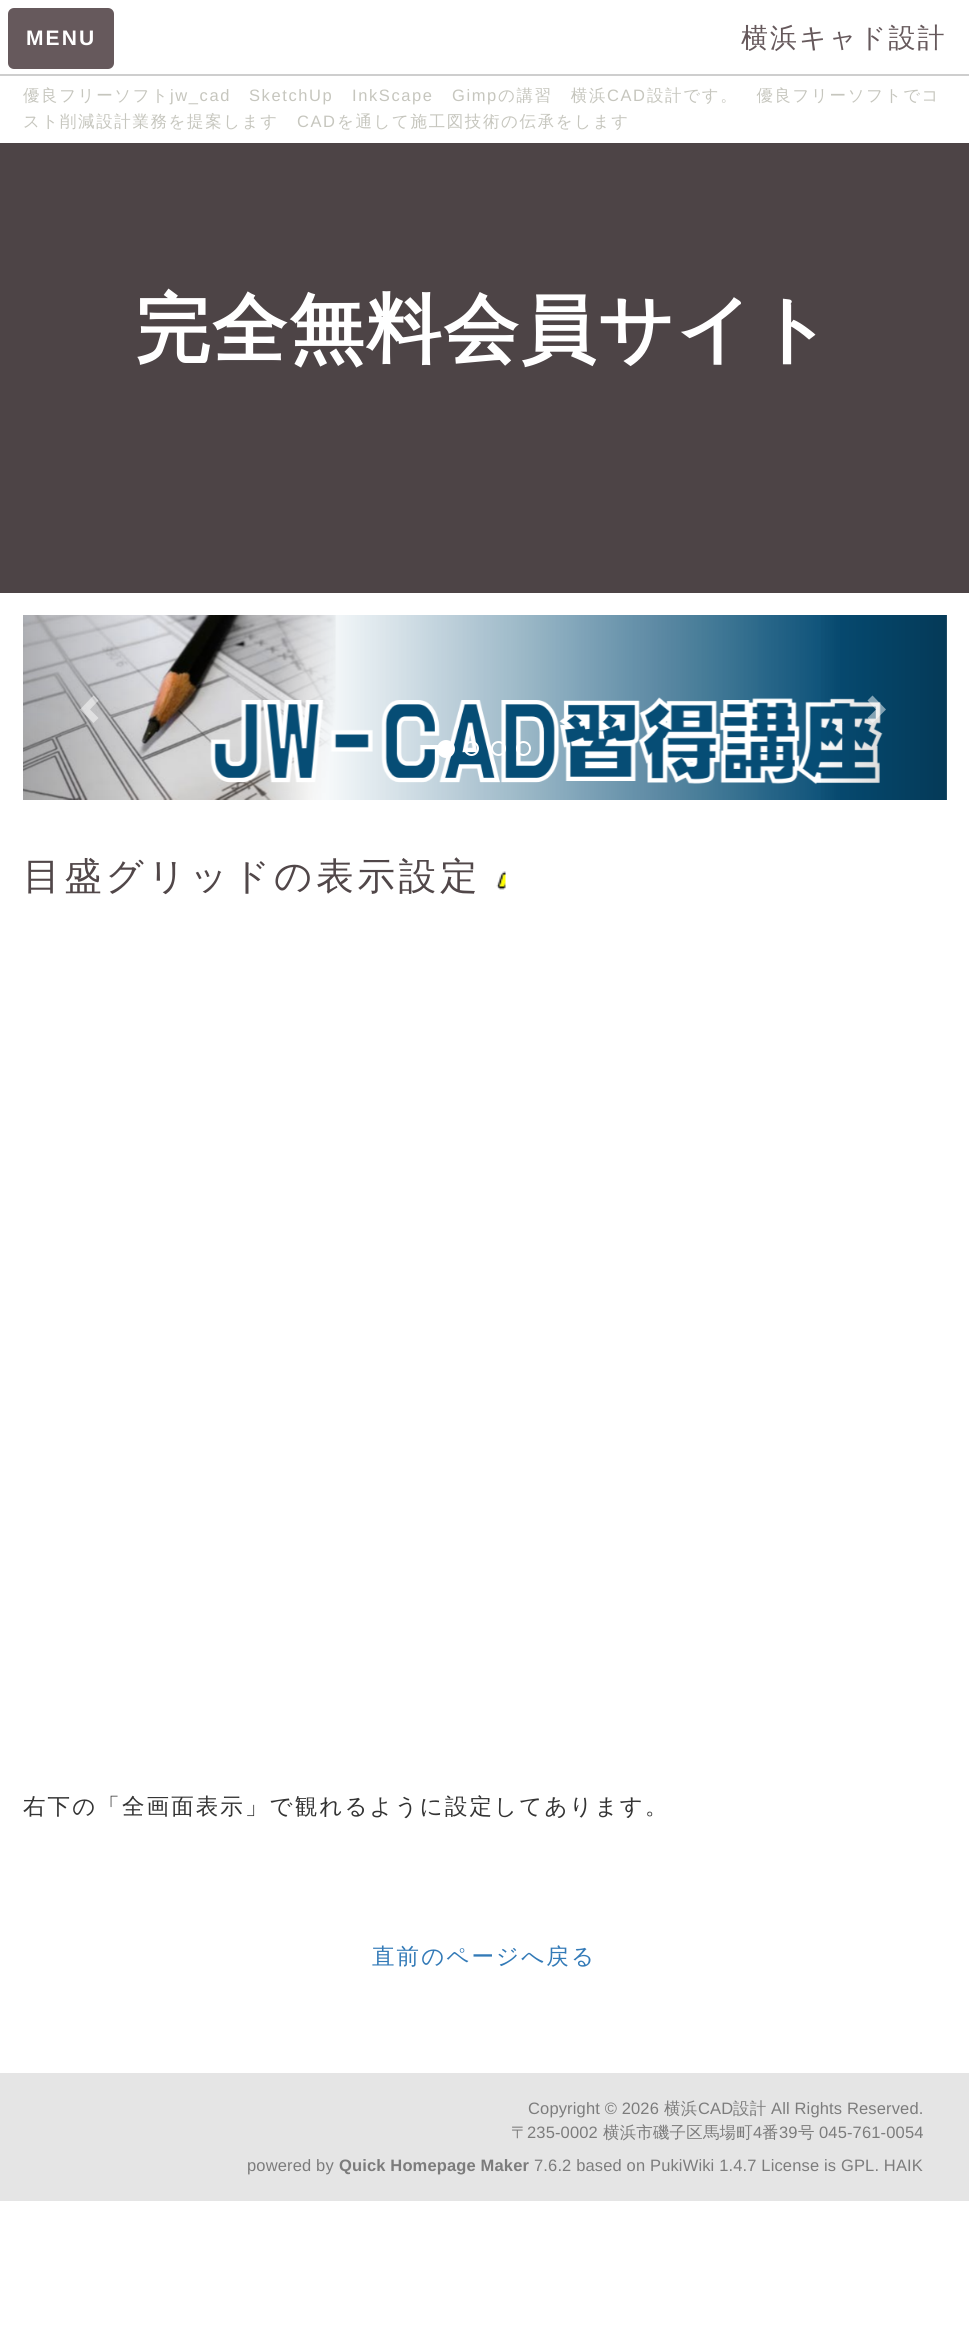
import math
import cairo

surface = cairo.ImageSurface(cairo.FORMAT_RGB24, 969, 2352)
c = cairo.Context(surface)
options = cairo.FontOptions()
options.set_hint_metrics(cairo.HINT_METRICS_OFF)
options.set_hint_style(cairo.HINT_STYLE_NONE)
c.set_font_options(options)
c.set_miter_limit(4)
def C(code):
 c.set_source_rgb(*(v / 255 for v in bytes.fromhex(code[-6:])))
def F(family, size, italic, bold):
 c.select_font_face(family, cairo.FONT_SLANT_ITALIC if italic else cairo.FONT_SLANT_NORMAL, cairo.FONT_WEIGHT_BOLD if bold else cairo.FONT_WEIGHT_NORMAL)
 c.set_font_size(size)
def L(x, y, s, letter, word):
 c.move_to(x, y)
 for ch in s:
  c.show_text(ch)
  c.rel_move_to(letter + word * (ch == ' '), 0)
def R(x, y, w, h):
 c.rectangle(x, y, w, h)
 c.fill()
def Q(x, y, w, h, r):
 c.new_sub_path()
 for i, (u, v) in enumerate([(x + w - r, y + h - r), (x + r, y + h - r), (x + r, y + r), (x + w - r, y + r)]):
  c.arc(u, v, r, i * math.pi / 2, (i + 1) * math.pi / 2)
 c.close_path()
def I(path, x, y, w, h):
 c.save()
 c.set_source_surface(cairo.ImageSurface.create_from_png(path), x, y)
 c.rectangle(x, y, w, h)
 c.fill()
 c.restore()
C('ffffff')
c.paint()
C('66595c')
Q(9.5,9.5,103,58,4.5)
c.fill_preserve()
c.set_line_width(3)
c.stroke()
F('Liberation Sans',21,0,1)
C('ffffff')
L(26,45,'MENU',2.1,0)
C('cecece')
R(0,74,969,2)
F('WenQuanYi Zen Hei Medium',27,0,0)
C('66595c')
L(741,47,'横浜キャド設計',2.1,0)
F('WenQuanYi Zen Hei Medium',16.5,0,0)
C('c6c6be')
L(23,101,'優良フリーソフト',1.6,0)
F('Liberation Sans',16.5,0,0)
L(170,101,'jw_cad',1.6,0)
L(249,101,'SketchUp',1.6,0)
L(352,101,'InkScape',1.6,0)
L(452,101,'Gimp',1.6,0)
F('WenQuanYi Zen Hei Medium',16.5,0,0)
L(498,101,'の講習　横浜',1.6,0)
F('Liberation Sans',16.5,0,0)
L(607,101,'CAD',1.6,0)
F('WenQuanYi Zen Hei Medium',16.5,0,0)
L(647,101,'設計です。　優良フリーソフトでコ',1.6,0)
L(23,127,'スト削減設計業務を提案します',1.6,0)
F('Liberation Sans',16.5,0,0)
L(297,127,'CAD',1.6,0)
F('WenQuanYi Zen Hei Medium',16.5,0,0)
L(337,127,'を通して施工図技術の伝承をします',1.6,0)
C('4d4446')
R(0,143,969,450)
F('WenQuanYi Zen Hei',75,0,1)
C('ffffff')
L(135,355,'完全無料会員サイト',2.1,0)
I('1.png',23,615,924,185)
c.set_source_rgba(1,1,1,0.5)
c.new_path()
c.move_to(98.5,700.5)
c.line_to(90,709.5)
c.line_to(98.5,718)
c.line_to(93.5,723)
c.line_to(80,709.5)
c.line_to(93.5,695.5)
c.close_path()
c.fill()
gradient = cairo.LinearGradient(809,707,947,707)
gradient.add_color_stop_rgba(0,0,0,0,0)
gradient.add_color_stop_rgba(1,0,0,0,.25)
c.set_source(gradient)
R(821,615,126,185)
c.set_source_rgba(1,1,1,0.5)
c.new_path()
c.move_to(886,709.5)
c.line_to(872.5,723)
c.line_to(867.5,718)
c.line_to(876,709.5)
c.line_to(867.5,700.5)
c.line_to(872.5,695.5)
c.close_path()
c.fill()
C('ffffff')
c.arc(446,749,8,0,2 * math.pi)
c.fill_preserve()
c.set_line_width(2)
c.stroke()
c.arc(471.5,748.5,6.5,0,2 * math.pi)
c.stroke()
c.arc(498.5,748.5,6.5,0,2 * math.pi)
c.stroke()
c.arc(523.5,748.5,6.5,0,2 * math.pi)
c.stroke()
F('WenQuanYi Zen Hei Medium',37.5,0,0)
C('514749')
L(23,889,'目盛グリッドの表示設定',3.75,0)
I('2.png',496,871,10,19)
F('WenQuanYi Zen Hei Medium',22.5,0,0)
C('333333')
L(23,1814,'右下の「全画面表示」で観れるように設定してあります。',2.1,0)
C('337ab7')
L(372,1964,'直前のページへ戻る',2.1,0)
C('e5e5e5')
R(0,2073,969,128)
F('Liberation Sans',16.5,0,0)
C('7c7c7c')
L(528,2114,'Copyright © 2026',.15,0)
F('WenQuanYi Zen Hei Medium',16.5,0,0)
L(664,2114,'横浜',.15,0)
F('Liberation Sans',16.5,0,0)
L(698,2114,'CAD',.15,0)
F('WenQuanYi Zen Hei Medium',16.5,0,0)
L(733,2114,'設計',.15,0)
F('Liberation Sans',16.5,0,0)
L(771,2114,'All Rights Reserved.',.15,0)
F('WenQuanYi Zen Hei Medium',16.5,0,0)
L(511,2138,'〒',.15,0)
F('Liberation Sans',16.5,0,0)
L(527,2138,'235-0002',.15,0)
F('WenQuanYi Zen Hei Medium',16.5,0,0)
L(603,2138,'横浜市磯子区馬場町',.15,0)
F('Liberation Sans',16.5,0,0)
L(753,2138,'4',.15,0)
F('WenQuanYi Zen Hei Medium',16.5,0,0)
L(762,2138,'番',.15,0)
F('Liberation Sans',16.5,0,0)
L(779,2138,'39',.15,0)
F('WenQuanYi Zen Hei Medium',16.5,0,0)
L(798,2138,'号',.15,0)
F('Liberation Sans',16.5,0,0)
L(819,2138,'045-761-0054',.15,0)
L(247,2171,'powered by',.15,0)
F('Liberation Sans',16.5,0,1)
L(339,2171,'Quick Homepage Maker',.15,0)
F('Liberation Sans',16.5,0,0)
L(534,2171,'7.6.2 based on PukiWiki 1.4.7 License is GPL. HAIK',.15,0)
surface.write_to_png('o.png')
